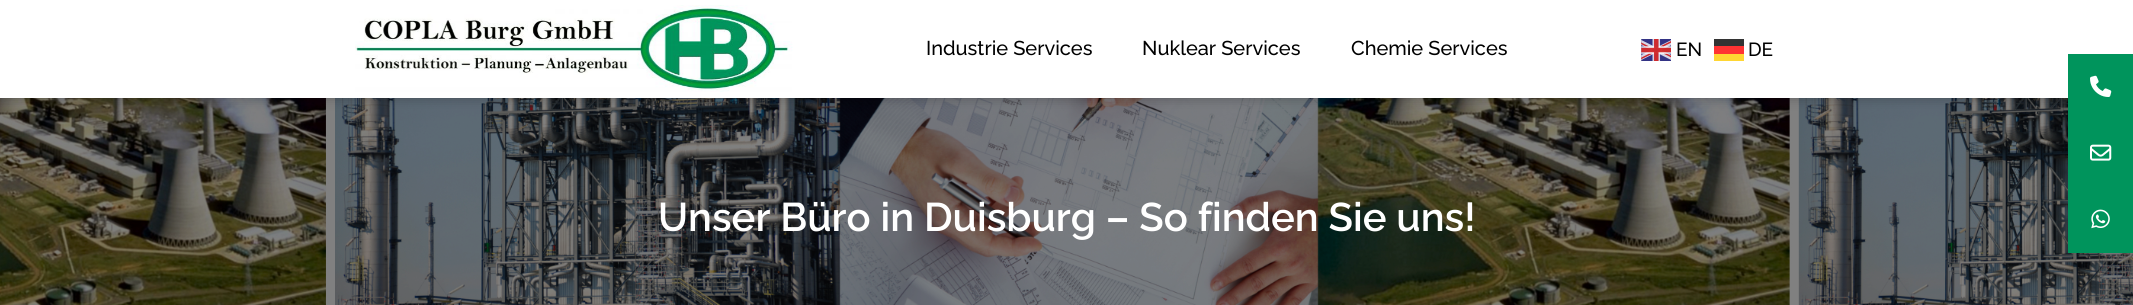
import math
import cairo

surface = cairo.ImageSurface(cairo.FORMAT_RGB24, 2133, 305)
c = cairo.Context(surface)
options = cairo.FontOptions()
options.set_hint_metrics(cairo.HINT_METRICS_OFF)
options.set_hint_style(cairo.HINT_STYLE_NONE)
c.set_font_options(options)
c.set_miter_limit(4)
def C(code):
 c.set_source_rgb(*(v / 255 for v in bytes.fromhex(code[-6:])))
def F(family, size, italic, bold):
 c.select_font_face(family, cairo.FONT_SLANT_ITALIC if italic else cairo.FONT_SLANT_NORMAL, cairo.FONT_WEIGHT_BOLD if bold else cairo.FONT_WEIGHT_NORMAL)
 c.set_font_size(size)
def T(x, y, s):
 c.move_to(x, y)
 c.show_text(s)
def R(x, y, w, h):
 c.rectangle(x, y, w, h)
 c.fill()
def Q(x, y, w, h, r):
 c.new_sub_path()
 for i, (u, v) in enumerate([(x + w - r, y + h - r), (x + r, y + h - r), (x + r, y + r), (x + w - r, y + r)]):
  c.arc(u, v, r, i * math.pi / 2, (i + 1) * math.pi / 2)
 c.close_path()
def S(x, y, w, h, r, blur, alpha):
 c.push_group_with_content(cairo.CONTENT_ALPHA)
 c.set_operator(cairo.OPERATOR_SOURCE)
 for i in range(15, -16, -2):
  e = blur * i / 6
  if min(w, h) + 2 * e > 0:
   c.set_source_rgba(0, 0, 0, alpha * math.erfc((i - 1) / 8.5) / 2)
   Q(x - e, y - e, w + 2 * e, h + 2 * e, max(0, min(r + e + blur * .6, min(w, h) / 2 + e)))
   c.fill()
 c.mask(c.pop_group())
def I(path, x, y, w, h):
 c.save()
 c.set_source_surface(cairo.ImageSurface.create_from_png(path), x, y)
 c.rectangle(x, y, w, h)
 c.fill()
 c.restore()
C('ffffff')
c.paint()
I('3.png',0,98,2133,207)
C('000000')
S(5,10,2124,88,0,6,.25)
C('ffffff')
R(0,0,2133,98)
I('1.png',355,5,438,87)
F('Raleway Medium',20,0,0)
C('000000')
T(926,55,'Industrie Services')
T(1142,55,'Nuklear Services')
T(1351,55,'Chemie Services')
I('2.png',1641,39,30,22)
F('Raleway Medium',19,0,0)
T(1676,56,'EN')
T(1748,56,'DE')
C('ffd633')
R(1714,54,30,7)
C('333333')
R(1714,39,30,7)
C('ff3333')
R(1714,46,30,8)
F('Raleway SemiBold',40,0,0)
C('ffffff')
T(658,231,'Unser Büro in Duisburg – So finden Sie uns!')
C('00945c')
R(2068,54,65,199)
I('4.png',2090,75,22,22)
I('5.png',2090,144,22,17)
I('6.png',2091,209,19,20)
surface.write_to_png('o.png')
